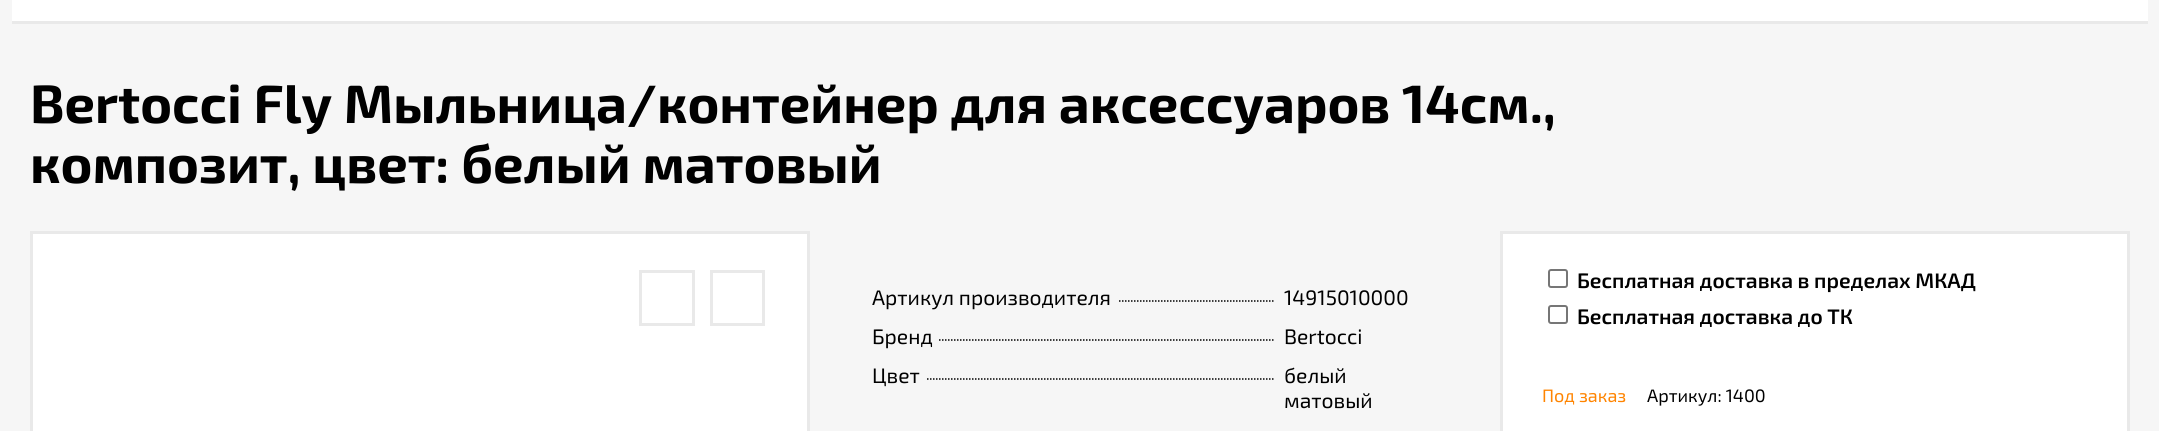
import math
import cairo

surface = cairo.ImageSurface(cairo.FORMAT_RGB24, 2159, 431)
c = cairo.Context(surface)
options = cairo.FontOptions()
options.set_hint_metrics(cairo.HINT_METRICS_OFF)
options.set_hint_style(cairo.HINT_STYLE_NONE)
c.set_font_options(options)
c.set_miter_limit(4)
def C(code):
 c.set_source_rgb(*(v / 255 for v in bytes.fromhex(code[-6:])))
def F(family, size, italic, bold):
 c.select_font_face(family, cairo.FONT_SLANT_ITALIC if italic else cairo.FONT_SLANT_NORMAL, cairo.FONT_WEIGHT_BOLD if bold else cairo.FONT_WEIGHT_NORMAL)
 c.set_font_size(size)
def T(x, y, s):
 c.move_to(x, y)
 c.show_text(s)
def R(x, y, w, h):
 c.rectangle(x, y, w, h)
 c.fill()
def Q(x, y, w, h, r):
 c.new_sub_path()
 for i, (u, v) in enumerate([(x + w - r, y + h - r), (x + r, y + h - r), (x + r, y + r), (x + w - r, y + r)]):
  c.arc(u, v, r, i * math.pi / 2, (i + 1) * math.pi / 2)
 c.close_path()
C('f6f6f6')
c.paint()
C('ffffff')
R(12,0,2136,21)
C('e9e9e9')
R(12,21,2136,3)
F('Exo 2',54,0,1)
C('000000')
T(30,123,'Bertocci Fly Мыльница/контейнер для аксессуаров 14см.,')
T(30,183,'композит, цвет: белый матовый')
C('ffffff')
c.rectangle(31.5,232.5,777,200)
c.fill_preserve()
C('e9e9e9')
c.set_line_width(3)
c.stroke()
c.rectangle(640.5,271.5,53,53)
c.stroke()
c.rectangle(711.5,271.5,52,53)
c.stroke()
c.new_path()
c.move_to(885,301)
c.line_to(1275,301)
C('000000')
c.set_line_width(1.5)
c.set_dash([1.5,1.5])
c.stroke()
C('f6f6f6')
R(885,300,233,2)
F('Exo 2',21,0,0)
C('000000')
T(872,305,'Артикул производителя')
T(1284,305,'14915010000')
c.new_path()
c.move_to(885,340)
c.line_to(1275,340)
c.stroke()
C('f6f6f6')
R(885,339,53,2)
C('000000')
T(872,344,'Бренд')
T(1284,344,'Bertocci')
c.new_path()
c.move_to(885,379)
c.line_to(1275,379)
c.stroke()
C('f6f6f6')
R(885,378,41,2)
C('000000')
T(872,383,'Цвет')
T(1284,383,'белый')
T(1284,408,'матовый')
C('ffffff')
c.rectangle(1501.5,232.5,627,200)
c.fill_preserve()
C('e9e9e9')
c.set_line_width(3)
c.set_dash([])
c.stroke()
Q(1549,270,18,17,2)
C('767676')
c.set_line_width(2)
c.stroke()
F('Exo 2 SemiBold',21,0,0)
C('000000')
T(1577,288,'Бесплатная доставка в пределах МКАД')
Q(1549,306,18,17,2)
C('767676')
c.stroke()
C('000000')
T(1577,324,'Бесплатная доставка до ТК')
F('Exo 2',18,0,0)
C('ff8400')
T(1542,402,'Под заказ')
C('000000')
T(1647,402,'Артикул: 1400')
surface.write_to_png('o.png')
